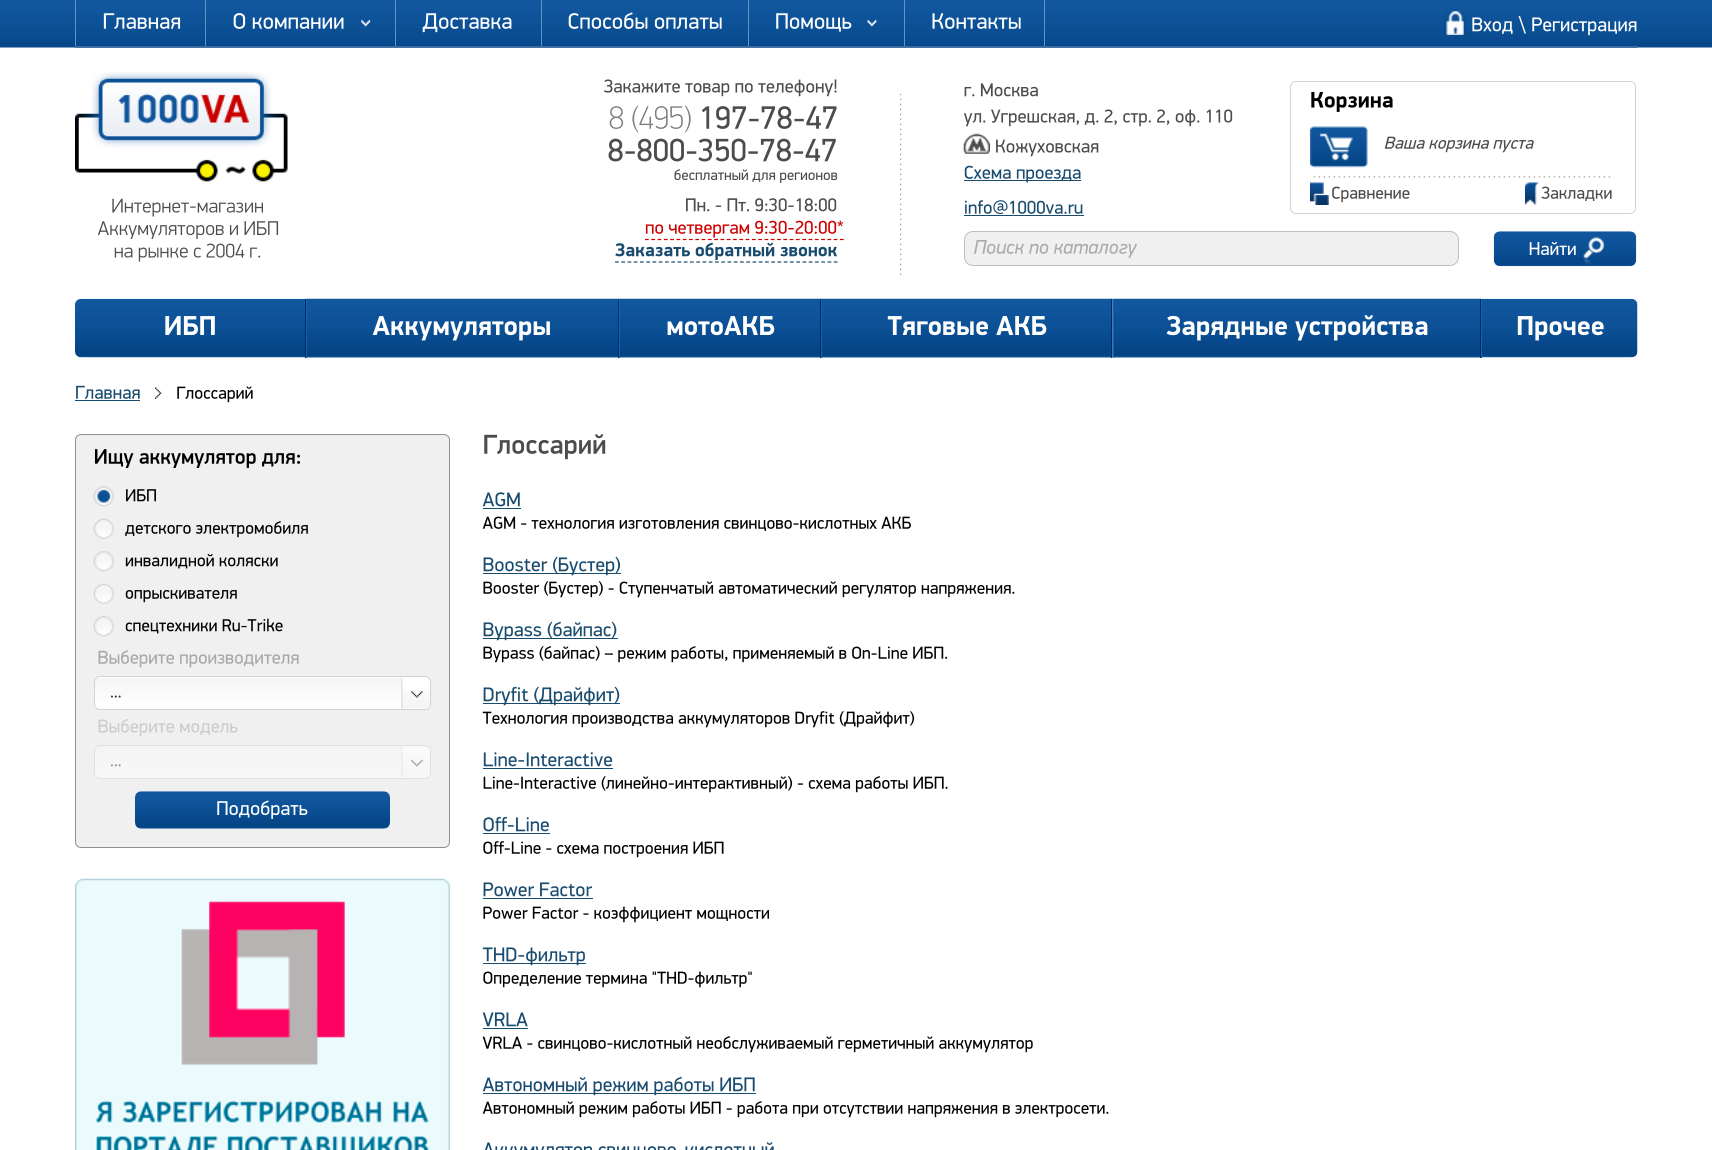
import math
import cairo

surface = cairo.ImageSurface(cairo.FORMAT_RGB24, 1712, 1150)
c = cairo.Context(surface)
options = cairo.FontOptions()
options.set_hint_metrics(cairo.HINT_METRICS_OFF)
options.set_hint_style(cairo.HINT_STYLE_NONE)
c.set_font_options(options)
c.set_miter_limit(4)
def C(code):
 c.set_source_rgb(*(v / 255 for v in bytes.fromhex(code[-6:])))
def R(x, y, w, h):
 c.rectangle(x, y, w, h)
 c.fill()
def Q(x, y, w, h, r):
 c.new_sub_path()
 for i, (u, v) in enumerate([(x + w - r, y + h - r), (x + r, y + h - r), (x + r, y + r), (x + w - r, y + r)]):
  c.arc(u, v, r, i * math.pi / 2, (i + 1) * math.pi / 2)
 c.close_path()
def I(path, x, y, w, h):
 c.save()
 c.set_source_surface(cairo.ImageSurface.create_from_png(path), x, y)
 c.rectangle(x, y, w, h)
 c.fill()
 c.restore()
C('ffffff')
c.paint()
I('1.png',0,0,1712,48)
I('2.png',75,47,1563,1)
C('396da2')
R(75,46,1563,1)
C('6193c7')
R(75,0,1,46)
I('3.png',103,13,78,16)
R(205,0,1,46)
I('4.png',233,13,111,16)
I('5.png',361,19,10,8)
R(395,0,1,46)
I('6.png',422,13,90,20)
R(541,0,1,46)
I('7.png',568,12,154,17)
R(748,0,1,46)
I('8.png',776,13,76,19)
I('9.png',867,19,10,8)
R(1044,0,1,46)
R(904,0,1,46)
I('10.png',932,13,89,16)
I('11.png',1444,11,22,24)
I('12.png',1472,17,41,17)
C('ffffff')
c.new_path()
c.move_to(1518.5,16)
c.line_to(1520,16)
c.line_to(1526,33.5)
c.line_to(1524.5,33.5)
c.close_path()
c.fill()
I('13.png',1532,17,105,19)
I('14.png',75,72,213,110)
I('15.png',112,198,151,19)
I('16.png',97,221,182,18)
I('17.png',114,243,147,19)
I('18.png',604,79,233,18)
I('19.png',609,105,82,28)
I('20.png',701,106,136,23)
I('21.png',608,138,228,24)
I('22.png',674,169,164,14)
I('23.png',686,198,151,14)
I('24.png',645,220,199,18)
c.new_path()
c.move_to(645,239.5)
c.line_to(844,239.5)
C('cc0000')
c.set_line_width(1.2)
c.set_dash([3.75,2.54])
c.stroke()
I('25.png',615,242,222,18)
c.new_path()
c.move_to(615,262)
c.line_to(837.5,262)
C('194b6f')
c.set_dash([3.75,2.5])
c.stroke()
I('26.png',900,93,2,182)
I('27.png',964,83,74,14)
I('28.png',964,109,269,18)
I('29.png',963,133,27,21)
I('30.png',996,139,103,18)
R(964,180,117,1)
I('31.png',964,165,117,18)
I('32.png',964,200,119,14)
R(964,215,120,1)
Q(1290.5,81.5,345,132,5.5)
C('d2d2d2')
c.set_line_width(1)
c.set_dash([])
c.stroke()
I('33.png',1311,92,82,20)
I('34.png',1310,126,58,42)
I('35.png',1384,136,150,17)
I('36.png',1310,176,301,2)
I('37.png',1310,182,19,23)
I('38.png',1332,186,78,17)
I('39.png',1525,182,14,23)
I('40.png',1541,186,71,15)
C('f0f0f0')
Q(964.5,231.5,494,34,8.5)
c.fill_preserve()
C('bebebe')
c.stroke()
I('41.png',974,240,163,18)
I('42.png',1493,231,144,36)
I('43.png',1529,241,47,14)
I('44.png',1583,237,21,28)
I('45.png',75,298,231,60)
C('042864')
R(305,299,1,59)
I('46.png',165,316,50,19)
I('47.png',306,298,313,60)
R(618,299,1,59)
C('0e67b0')
R(306,299,1,59)
I('48.png',372,316,178,25)
I('49.png',618,298,204,60)
C('042864')
R(820,299,1,59)
C('0e67b0')
R(619,299,1,59)
I('50.png',667,316,108,20)
I('51.png',821,298,292,60)
C('042864')
R(1111,299,1,59)
C('0e67b0')
R(821,299,1,59)
I('52.png',887,316,160,20)
I('53.png',1112,298,370,60)
C('042864')
R(1480,299,1,59)
C('0e67b0')
R(1113,299,1,59)
I('54.png',1166,315,262,26)
I('55.png',1481,298,157,60)
R(1481,299,1,59)
I('56.png',1517,316,87,25)
I('57.png',76,385,64,14)
C('194b6f')
R(75,400,65,1)
I('58.png',155,387,7,12)
I('59.png',177,386,76,17)
C('f0f0f0')
Q(75.5,434.5,374,413,5.5)
c.fill_preserve()
C('8f8f8f')
c.stroke()
I('60.png',95,449,205,19)
I('61.png',93,486,21,21)
I('62.png',126,489,30,13)
I('63.png',93,518,21,21)
I('64.png',125,521,183,17)
I('65.png',93,551,21,21)
I('66.png',125,554,153,15)
I('67.png',93,583,21,21)
I('68.png',125,590,112,13)
I('65.png',93,616,21,21)
I('69.png',125,618,158,16)
I('70.png',98,650,201,18)
c.save()
Q(94,676,337,34,6)
c.clip()
gradient = cairo.LinearGradient(95,646,95,678)
gradient.add_color_stop_rgba(0,0.961,0.961,0.961,1)
gradient.add_color_stop_rgba(1,1,1,1,1)
c.set_source(gradient)
R(94,676,337,2)
gradient = cairo.LinearGradient(95,678,95,709)
gradient.add_color_stop_rgba(0,0.961,0.961,0.961,1)
gradient.add_color_stop_rgba(1,1,1,1,1)
c.set_source(gradient)
R(94,678,337,31)
c.restore()
Q(94.5,676.5,336,33,5.5)
C('d2d2d2')
c.stroke()
I('71.png',111,695,10,3)
I('72.png',401,677,29,32)
I('73.png',98,719,140,18)
c.save()
Q(94,745,337,34,6)
c.clip()
gradient = cairo.LinearGradient(95,746,95,778)
gradient.add_color_stop_rgba(0,0.953,0.953,0.953,1)
gradient.add_color_stop_rgba(1,0.973,0.973,0.973,1)
c.set_source(gradient)
R(94,746,337,32)
c.restore()
Q(94.5,745.5,336,33,5.5)
C('e1e1e1')
c.stroke()
I('74.png',111,764,10,3)
I('75.png',401,746,29,31)
I('76.png',135,791,255,38)
I('77.png',217,800,91,19)
I('78.png',75,878,375,272)
I('79.png',484,434,122,26)
I('80.png',482,492,38,15)
C('194b6f')
R(483,508,38,1)
I('81.png',482,516,429,15)
R(483,573,138,1)
I('82.png',483,556,138,20)
I('83.png',483,581,532,17)
R(483,638,135,1)
I('84.png',483,621,134,20)
I('85.png',483,646,465,17)
R(483,703,137,1)
I('86.png',483,686,137,20)
I('87.png',482,711,433,17)
I('88.png',483,752,130,15)
R(483,768,130,1)
I('89.png',483,776,465,17)
I('90.png',483,816,66,16)
R(483,833,67,1)
I('91.png',483,841,241,17)
I('92.png',483,882,109,15)
R(483,898,110,1)
I('93.png',483,906,286,17)
R(483,963,103,1)
I('94.png',482,947,103,19)
I('95.png',483,971,269,17)
I('96.png',482,1012,46,15)
R(483,1028,45,1)
I('97.png',482,1036,551,17)
R(483,1093,273,1)
I('98.png',482,1076,273,20)
I('99.png',482,1101,627,17)
I('100.png',485,1142,289,8)
surface.write_to_png('o.png')
